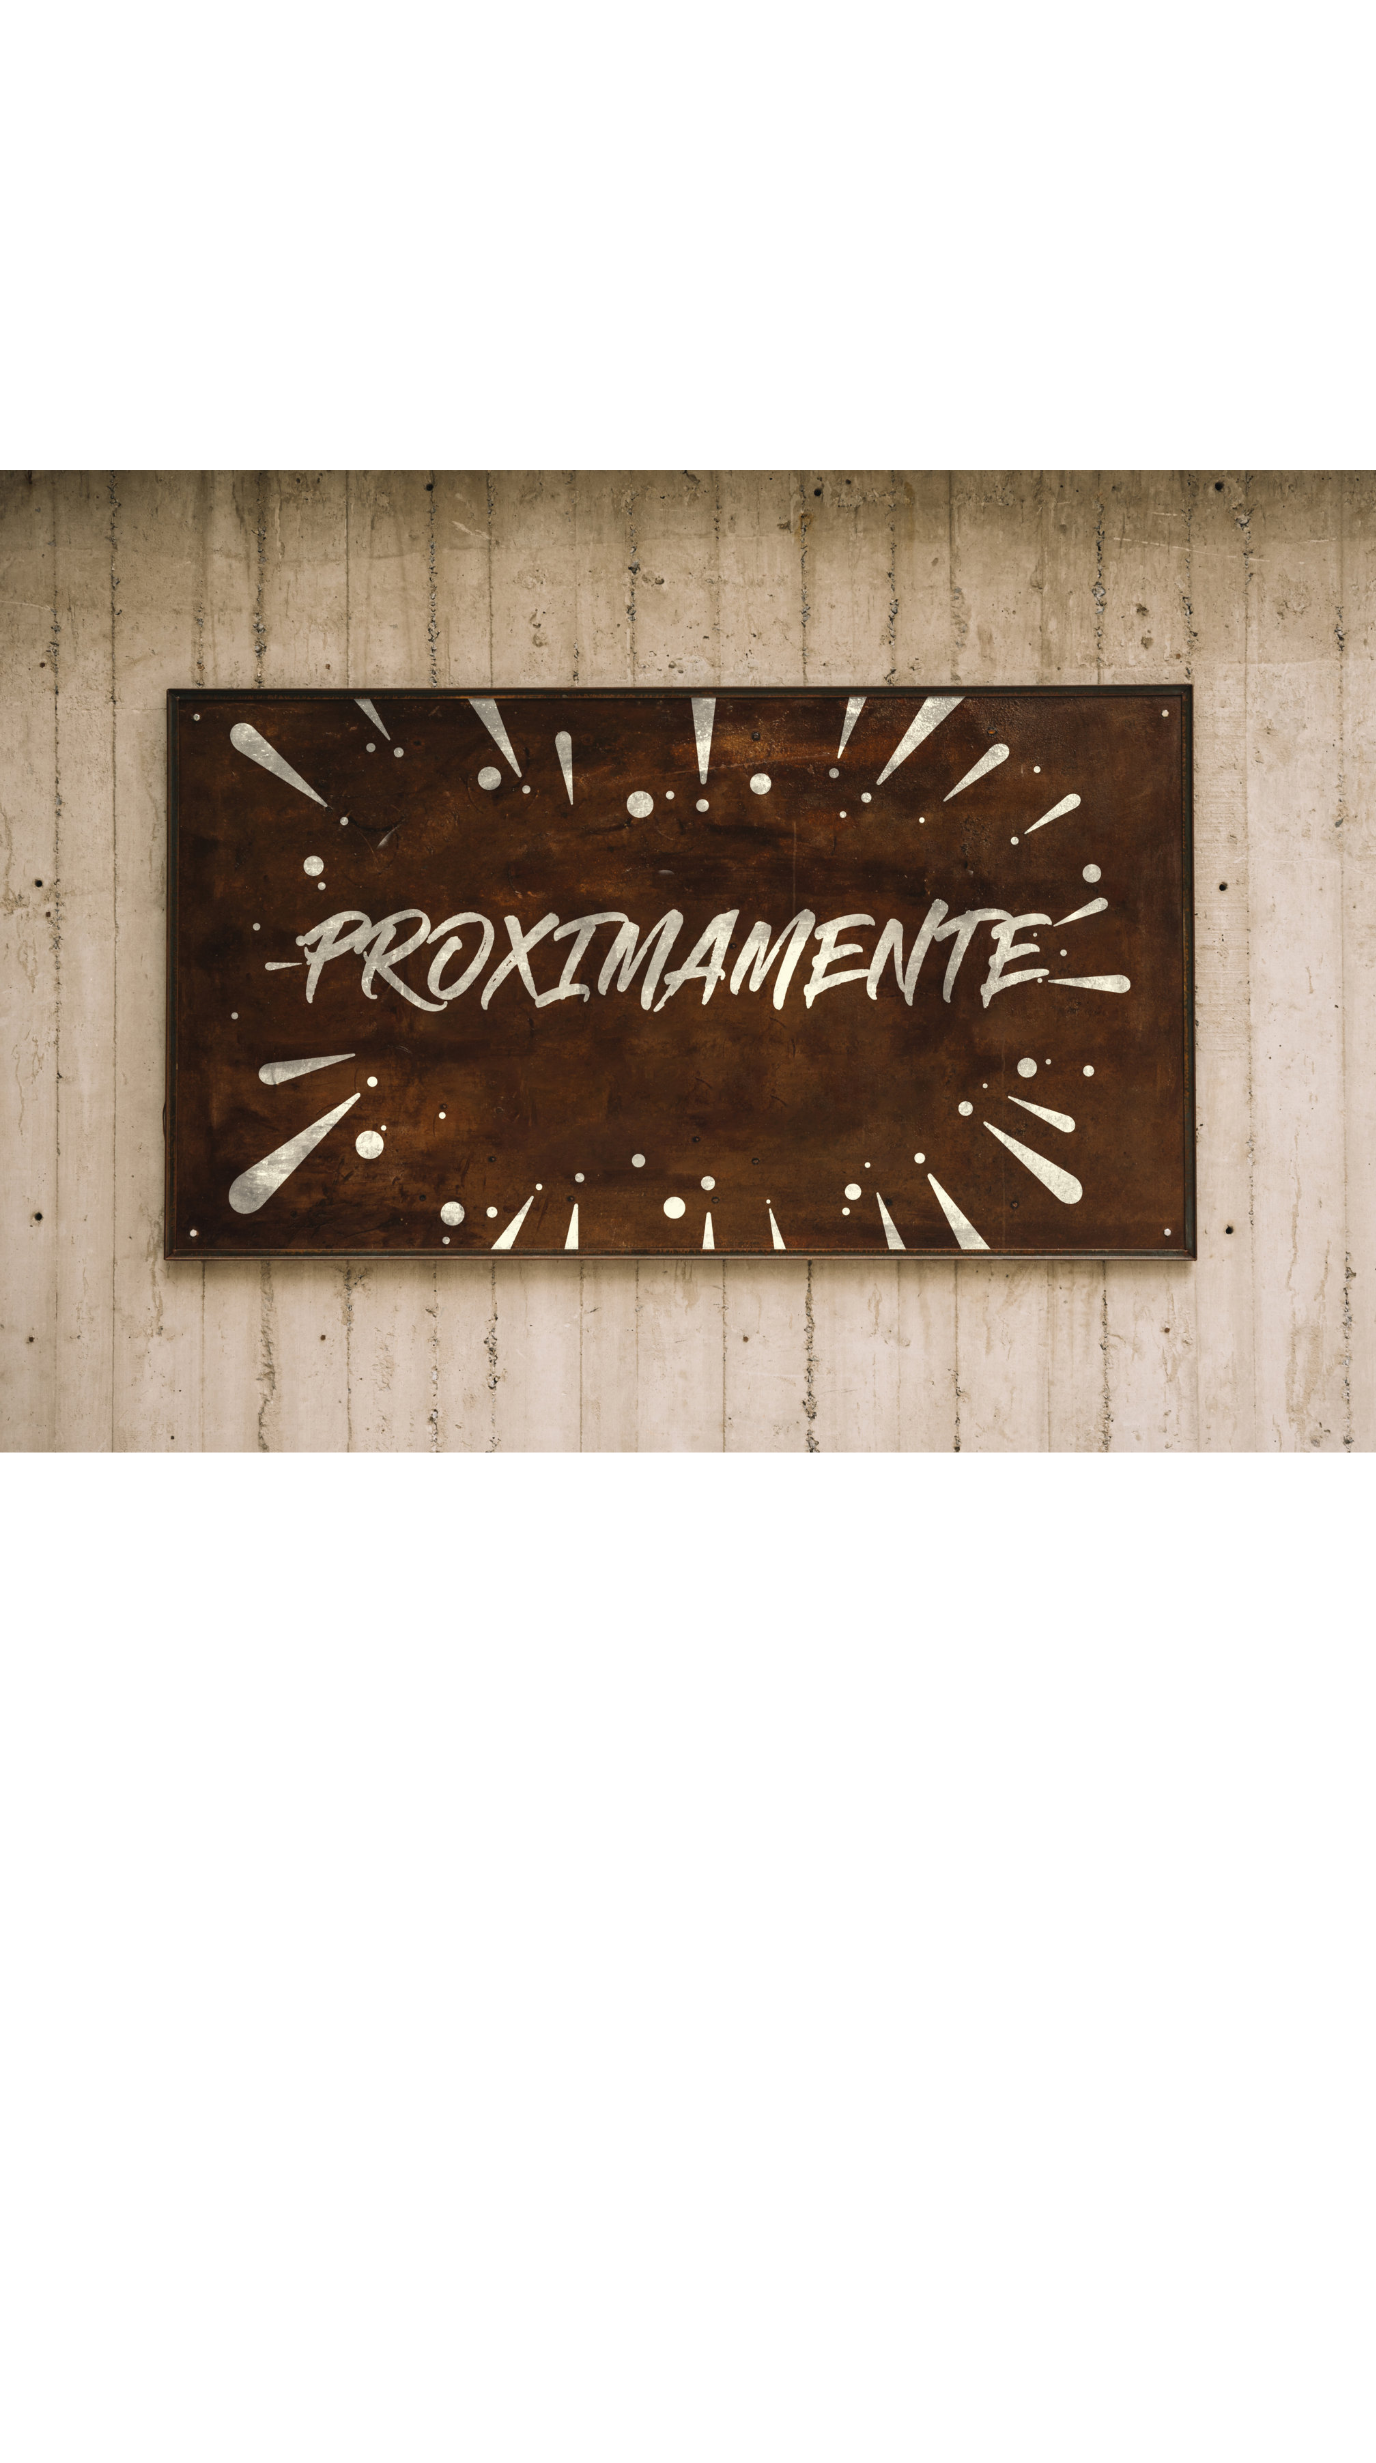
import math
import cairo

surface = cairo.ImageSurface(cairo.FORMAT_RGB24, 1376, 2463)
c = cairo.Context(surface)
options = cairo.FontOptions()
options.set_hint_metrics(cairo.HINT_METRICS_OFF)
options.set_hint_style(cairo.HINT_STYLE_NONE)
c.set_font_options(options)
c.set_miter_limit(4)
def C(code):
 c.set_source_rgb(*(v / 255 for v in bytes.fromhex(code[-6:])))
def I(path, x, y, w, h):
 c.save()
 c.set_source_surface(cairo.ImageSurface.create_from_png(path), x, y)
 c.rectangle(x, y, w, h)
 c.fill()
 c.restore()
C('ffffff')
c.paint()
I('1.png',0,470,1376,983)
surface.write_to_png('o.png')
